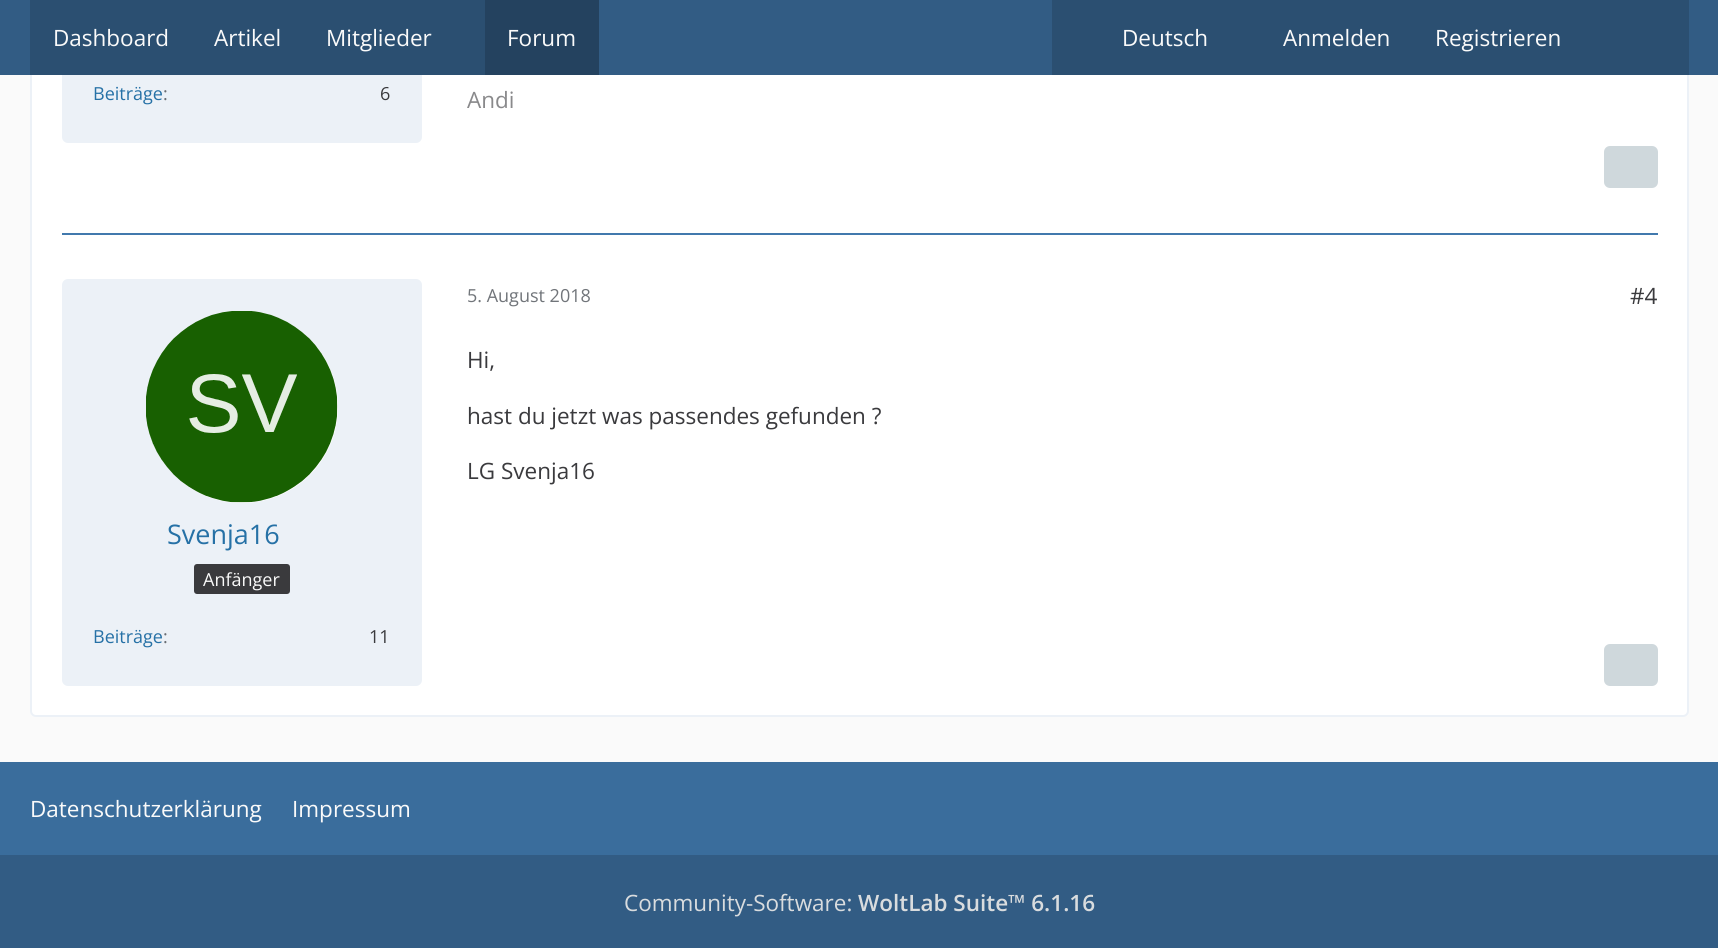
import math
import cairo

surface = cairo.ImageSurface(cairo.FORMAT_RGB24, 1718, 948)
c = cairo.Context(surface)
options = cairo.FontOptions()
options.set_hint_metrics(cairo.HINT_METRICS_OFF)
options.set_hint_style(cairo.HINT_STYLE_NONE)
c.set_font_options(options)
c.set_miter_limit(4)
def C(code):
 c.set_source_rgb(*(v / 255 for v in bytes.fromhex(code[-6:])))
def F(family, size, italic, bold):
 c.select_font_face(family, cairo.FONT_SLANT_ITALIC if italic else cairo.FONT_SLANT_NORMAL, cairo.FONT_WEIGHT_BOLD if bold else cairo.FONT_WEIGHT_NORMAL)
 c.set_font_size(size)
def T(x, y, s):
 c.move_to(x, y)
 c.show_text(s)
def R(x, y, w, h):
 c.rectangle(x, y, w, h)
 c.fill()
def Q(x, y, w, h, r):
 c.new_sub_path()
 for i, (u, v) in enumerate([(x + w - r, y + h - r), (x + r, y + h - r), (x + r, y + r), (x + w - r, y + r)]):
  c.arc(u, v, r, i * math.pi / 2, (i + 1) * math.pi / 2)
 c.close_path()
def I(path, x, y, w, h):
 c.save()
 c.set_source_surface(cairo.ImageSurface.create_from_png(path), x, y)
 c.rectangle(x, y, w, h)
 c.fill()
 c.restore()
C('fafafa')
c.paint()
C('ffffff')
Q(31,-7,1657,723,5)
c.fill_preserve()
C('ecf1f7')
c.stroke()
Q(62,-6,360,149,6)
c.fill()
C('325c84')
R(0,0,1718,75)
C('2b4f71')
R(30,0,455,75)
F('Open Sans',22.5,0,0)
C('fafafa')
T(53,46,'Dashboard')
T(214,46,'Artikel')
T(326,46,'Mitglieder')
C('24425f')
R(485,0,114,75)
C('fafafa')
T(507,46,'Forum')
C('2b4f71')
R(1052,0,637,75)
C('fafafa')
T(1122,46,'Deutsch')
T(1283,46,'Anmelden')
T(1435,46,'Registrieren')
C('4179ad')
R(62,233,1596,2)
F('Open Sans',18,0,0)
C('2671a6')
T(93,100,'Beiträge')
C('696d72')
T(163,100,':')
C('3a3a3d')
T(380,100,'6')
F('Open Sans',22.5,0,0)
C('89898b')
T(467,108,'Andi')
C('cfd8dc')
Q(1604,146,54,42,6)
c.fill()
F('Open Sans',18,0,0)
C('71757a')
T(467,302,'5. August 2018')
F('Open Sans',22.5,0,0)
C('3a3a3d')
T(1630,304,'#4')
T(467,368,'Hi,')
T(467,424,'hast du jetzt was passendes gefunden ?')
T(467,479,'LG Svenja16')
C('cfd8dc')
Q(1604,644,54,42,6)
c.fill()
C('ecf1f7')
Q(62,279,360,407,6)
c.fill()
C('ffffff')
c.arc(242,407,96,0,2 * math.pi)
c.fill()
I('1.png',146,311,192,192)
F('Open Sans',27,0,0)
C('2671a6')
T(167,544,'Svenja16')
C('3a3a3d')
Q(194,564,96,30,3)
c.fill()
F('Open Sans',18,0,0)
C('fafafa')
T(203,586,'Anfänger')
C('2671a6')
T(93,643,'Beiträge')
C('696d72')
T(163,643,':')
C('3a3a3d')
T(369,643,'11')
C('3a6d9c')
R(0,762,1718,93)
F('Open Sans',22.5,0,0)
C('fafafa')
T(30,817,'Datenschutzerklärung')
T(292,817,'Impressum')
C('325c84')
R(0,855,1718,93)
C('d9dcde')
T(624,911,'Community-Software:')
F('Open Sans SemiBold',22.5,0,0)
T(858,911,'WoltLab Suite™ 6.1.16')
surface.write_to_png('o.png')
